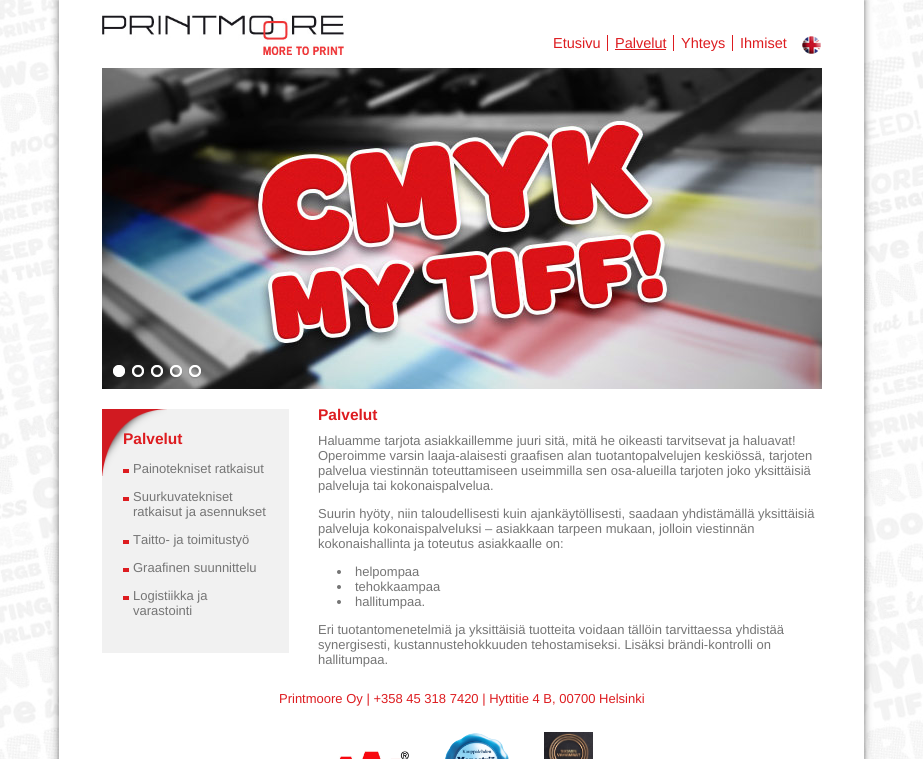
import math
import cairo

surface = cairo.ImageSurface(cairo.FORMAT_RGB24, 923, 759)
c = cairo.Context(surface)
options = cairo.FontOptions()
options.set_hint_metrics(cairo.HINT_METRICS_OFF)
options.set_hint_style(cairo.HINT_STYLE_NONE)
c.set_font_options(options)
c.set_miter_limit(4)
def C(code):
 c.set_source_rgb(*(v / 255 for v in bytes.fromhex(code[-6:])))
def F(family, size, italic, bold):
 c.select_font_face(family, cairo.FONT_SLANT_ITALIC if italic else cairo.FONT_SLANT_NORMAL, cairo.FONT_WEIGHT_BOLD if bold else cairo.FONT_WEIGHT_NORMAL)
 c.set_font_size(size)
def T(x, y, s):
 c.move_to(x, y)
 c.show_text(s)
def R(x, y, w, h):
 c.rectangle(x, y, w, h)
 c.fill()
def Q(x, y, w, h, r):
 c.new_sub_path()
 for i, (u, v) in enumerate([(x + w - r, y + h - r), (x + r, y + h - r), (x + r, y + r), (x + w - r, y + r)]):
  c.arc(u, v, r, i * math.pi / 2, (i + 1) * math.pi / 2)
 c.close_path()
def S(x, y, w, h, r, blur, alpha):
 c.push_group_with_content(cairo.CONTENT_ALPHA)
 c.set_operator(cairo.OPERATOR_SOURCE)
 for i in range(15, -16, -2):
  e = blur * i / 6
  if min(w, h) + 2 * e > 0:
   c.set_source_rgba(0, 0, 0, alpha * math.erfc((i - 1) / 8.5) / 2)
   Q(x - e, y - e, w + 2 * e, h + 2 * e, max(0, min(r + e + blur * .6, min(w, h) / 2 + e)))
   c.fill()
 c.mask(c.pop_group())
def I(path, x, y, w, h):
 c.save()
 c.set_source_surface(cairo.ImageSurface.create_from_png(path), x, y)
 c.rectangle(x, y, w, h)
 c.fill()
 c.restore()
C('ffffff')
c.paint()
I('1.png',0,0,923,759)
C('000000')
S(59,0,805,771,0,4,.54)
C('ffffff')
R(59,0,805,759)
I('2.png',102,14,242,41)
C('dd1c20')
R(607,35,1,16)
F('Liberation Sans',14.5,0,0)
T(553,48,'Etusivu')
R(673,35,1,16)
T(615,48,'Palvelut')
R(615,49,51,1)
R(732,35,1,16)
T(681,48,'Yhteys')
T(740,48,'Ihmiset')
I('3.png',802,36,19,18)
I('4.png',102,68,720,321)
I('5.png',113,365,12,13)
I('6.png',132,365,12,13)
I('7.png',151,365,12,13)
I('8.png',170,365,13,14)
I('9.png',188,365,14,14)
C('f1f1f1')
R(102,409,187,244)
I('10.png',102,409,65,67)
F('Liberation Sans',15.5,0,1)
C('dd1c20')
T(123,444,'Palvelut')
R(123,469,6,4)
F('Liberation Sans',13,0,0)
C('757575')
T(133,473,'Painotekniset ratkaisut')
C('dd1c20')
R(123,497,6,4)
C('757575')
T(133,501,'Suurkuvatekniset')
T(133,516,'ratkaisut ja asennukset')
C('dd1c20')
R(123,540,6,4)
C('757575')
T(133,544,'Taitto- ja toimitustyö')
C('dd1c20')
R(123,568,6,4)
C('757575')
T(133,572,'Graafinen suunnittelu')
C('dd1c20')
R(123,596,6,4)
C('757575')
T(133,600,'Logistiikka ja')
T(133,615,'varastointi')
F('Liberation Sans',15.5,0,1)
C('dd1c20')
T(318,420,'Palvelut')
F('Liberation Sans',13,0,0)
C('757575')
T(318,445,'Haluamme tarjota asiakkaillemme juuri sitä, mitä he oikeasti tarvitsevat ja haluavat!')
T(318,460,'Operoimme varsin laaja-alaisesti graafisen alan tuotantopalvelujen keskiössä, tarjoten')
T(318,475,'palvelua viestinnän toteuttamiseen useimmilla sen osa-alueilla tarjoten joko yksittäisiä')
T(318,490,'palveluja tai kokonaispalvelua.')
T(318,518,'Suurin hyöty, niin taloudellisesti kuin ajankäytöllisesti, saadaan yhdistämällä yksittäisiä')
T(318,533,'palveluja kokonaispalveluksi – asiakkaan tarpeen mukaan, jolloin viestinnän')
T(318,548,'kokonaishallinta ja toteutus asiakkaalle on:')
c.new_path()
c.arc(339,572,2,0,2 * math.pi)
c.fill()
T(355,576,'helpompaa')
c.new_path()
c.arc(339,587,2,0,2 * math.pi)
c.fill()
T(355,591,'tehokkaampaa')
c.new_path()
c.arc(339,602,2,0,2 * math.pi)
c.fill()
T(355,606,'hallitumpaa.')
T(318,634,'Eri tuotantomenetelmiä ja yksittäisiä tuotteita voidaan tällöin tarvittaessa yhdistää')
T(318,649,'synergisesti, kustannustehokkuuden tehostamiseksi. Lisäksi brändi-kontrolli on')
T(318,664,'hallitumpaa.')
C('dd1c20')
T(279,703,'Printmoore Oy | +358 45 318 7420 | Hyttitie 4 B, 00700 Helsinki')
I('11.png',339,750,70,9)
I('12.png',445,733,64,26)
I('13.png',544,732,49,27)
surface.write_to_png('o.png')
